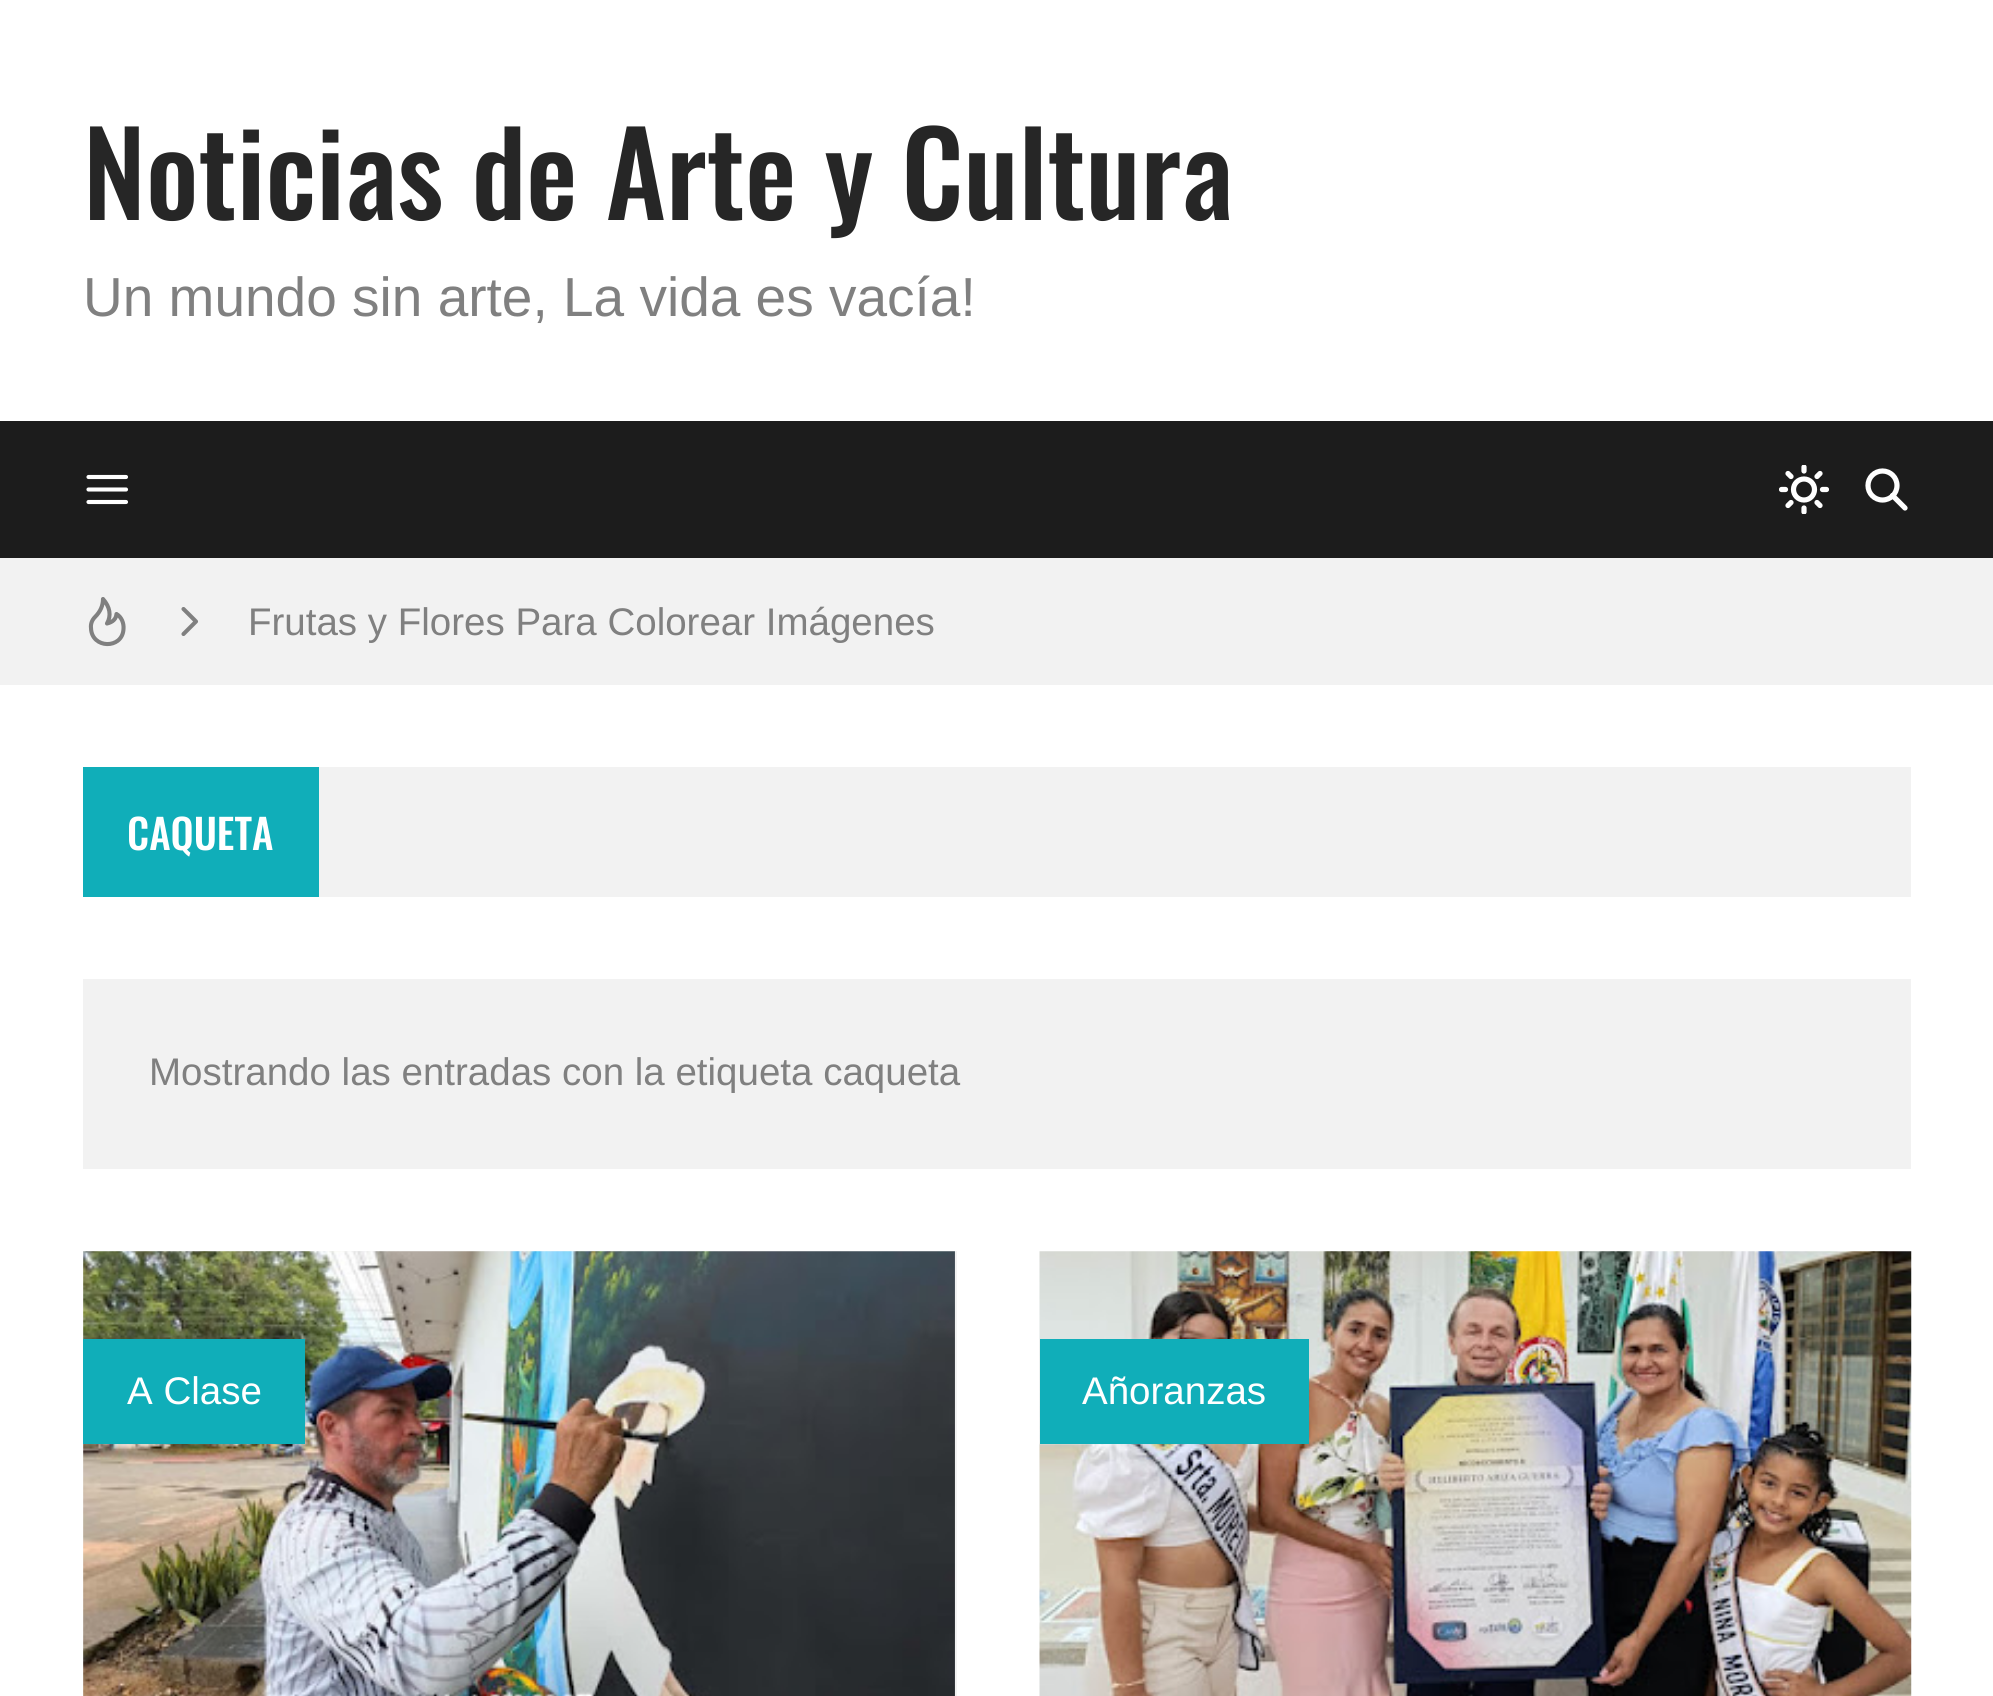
import math
import cairo

surface = cairo.ImageSurface(cairo.FORMAT_RGB24, 1993, 1696)
c = cairo.Context(surface)
options = cairo.FontOptions()
options.set_hint_metrics(cairo.HINT_METRICS_OFF)
options.set_hint_style(cairo.HINT_STYLE_NONE)
c.set_font_options(options)
c.set_miter_limit(4)
def C(code):
 c.set_source_rgb(*(v / 255 for v in bytes.fromhex(code[-6:])))
def F(family, size, italic, bold):
 c.select_font_face(family, cairo.FONT_SLANT_ITALIC if italic else cairo.FONT_SLANT_NORMAL, cairo.FONT_WEIGHT_BOLD if bold else cairo.FONT_WEIGHT_NORMAL)
 c.set_font_size(size)
def T(x, y, s):
 c.move_to(x, y)
 c.show_text(s)
def R(x, y, w, h):
 c.rectangle(x, y, w, h)
 c.fill()
def I(path, x, y, w, h):
 c.save()
 c.set_source_surface(cairo.ImageSurface.create_from_png(path), x, y)
 c.rectangle(x, y, w, h)
 c.fill()
 c.restore()
C('ffffff')
c.paint()
F('Oswald Medium',115.5,0,0)
C('262626')
T(83,220,'Noticias de Arte y Cultura')
F('Liberation Sans',55,0,0)
C('808080')
T(83,316,'Un mundo sin arte, La vida es vacía!')
C('1c1c1c')
R(0,421,1993,137)
c.new_path()
c.move_to(88.5,477)
c.line_to(126,477)
c.move_to(88.5,489.5)
c.line_to(126,489.5)
c.move_to(88.5,502)
c.line_to(126,502)
C('ffffff')
c.set_line_width(4.1)
c.set_line_cap(cairo.LINE_CAP_ROUND)
c.set_line_join(cairo.LINE_JOIN_ROUND)
c.stroke()
c.arc(1804,489.5,10.5,0,2 * math.pi)
c.set_line_width(5.2)
c.set_line_cap(cairo.LINE_CAP_BUTT)
c.set_line_join(cairo.LINE_JOIN_MITER)
c.stroke()
c.save()
c.rectangle(1779,465,50,49)
c.clip()
c.new_path()
c.move_to(1804,467)
c.line_to(1804,471)
c.move_to(1804,508)
c.line_to(1804,512)
c.move_to(1788,473.5)
c.line_to(1791,476.5)
c.move_to(1817,502.5)
c.line_to(1820,505.5)
c.move_to(1781.5,489.5)
c.line_to(1785.5,489.5)
c.move_to(1822.5,489.5)
c.line_to(1826.5,489.5)
c.move_to(1788,505.5)
c.line_to(1791,502.5)
c.move_to(1817,476.5)
c.line_to(1820,473.5)
c.set_line_cap(cairo.LINE_CAP_ROUND)
c.set_line_join(cairo.LINE_JOIN_ROUND)
c.stroke()
c.restore()
c.arc(1882.5,485.5,14.5,0,2 * math.pi)
c.stroke()
c.new_path()
c.move_to(1892.5,495.5)
c.line_to(1905,508)
c.set_line_cap(cairo.LINE_CAP_ROUND)
c.set_line_join(cairo.LINE_JOIN_ROUND)
c.stroke()
C('f2f2f2')
R(0,558,1993,127)
c.new_path()
c.move_to(95,617)
c.curve_to(92,620,90.5,624,91,628)
c.curve_to(91.5,649,122.5,649.5,123.5,629)
c.curve_to(124,623,121.5,617,116.5,614)
c.curve_to(116,619,113,622,107,623.5)
c.curve_to(111.5,615.5,110,607,103,599)
c.curve_to(103,605.5,100.5,611.5,95,617)
C('808080')
c.set_line_width(4.1)
c.stroke()
c.new_path()
c.move_to(183.5,634)
c.line_to(196,621.5)
c.line_to(183.5,609)
c.stroke()
F('Liberation Sans',38.5,0,0)
T(248,635,'Frutas y Flores Para Colorear Imágenes')
C('f2f2f2')
R(319,767,1592,130)
C('10aeb9')
R(83,767,236,130)
F('Oswald Medium',41,0,0)
C('ffffff')
T(127,850,'CAQUETA')
C('f2f2f2')
R(83,979,1828,190)
F('Liberation Sans',38.5,0,0)
C('808080')
T(149,1085,'Mostrando las entradas con la etiqueta caqueta')
C('f2f2f2')
R(83,1251,874,445)
I('1.png',83,1251,872,445)
C('10aeb9')
R(83,1339,222,105)
C('ffffff')
T(127,1404,'A Clase')
I('2.png',1039,1251,873,445)
C('10aeb9')
R(1040,1339,269,105)
C('ffffff')
T(1082,1404,'Añoranzas')
surface.write_to_png('o.png')
